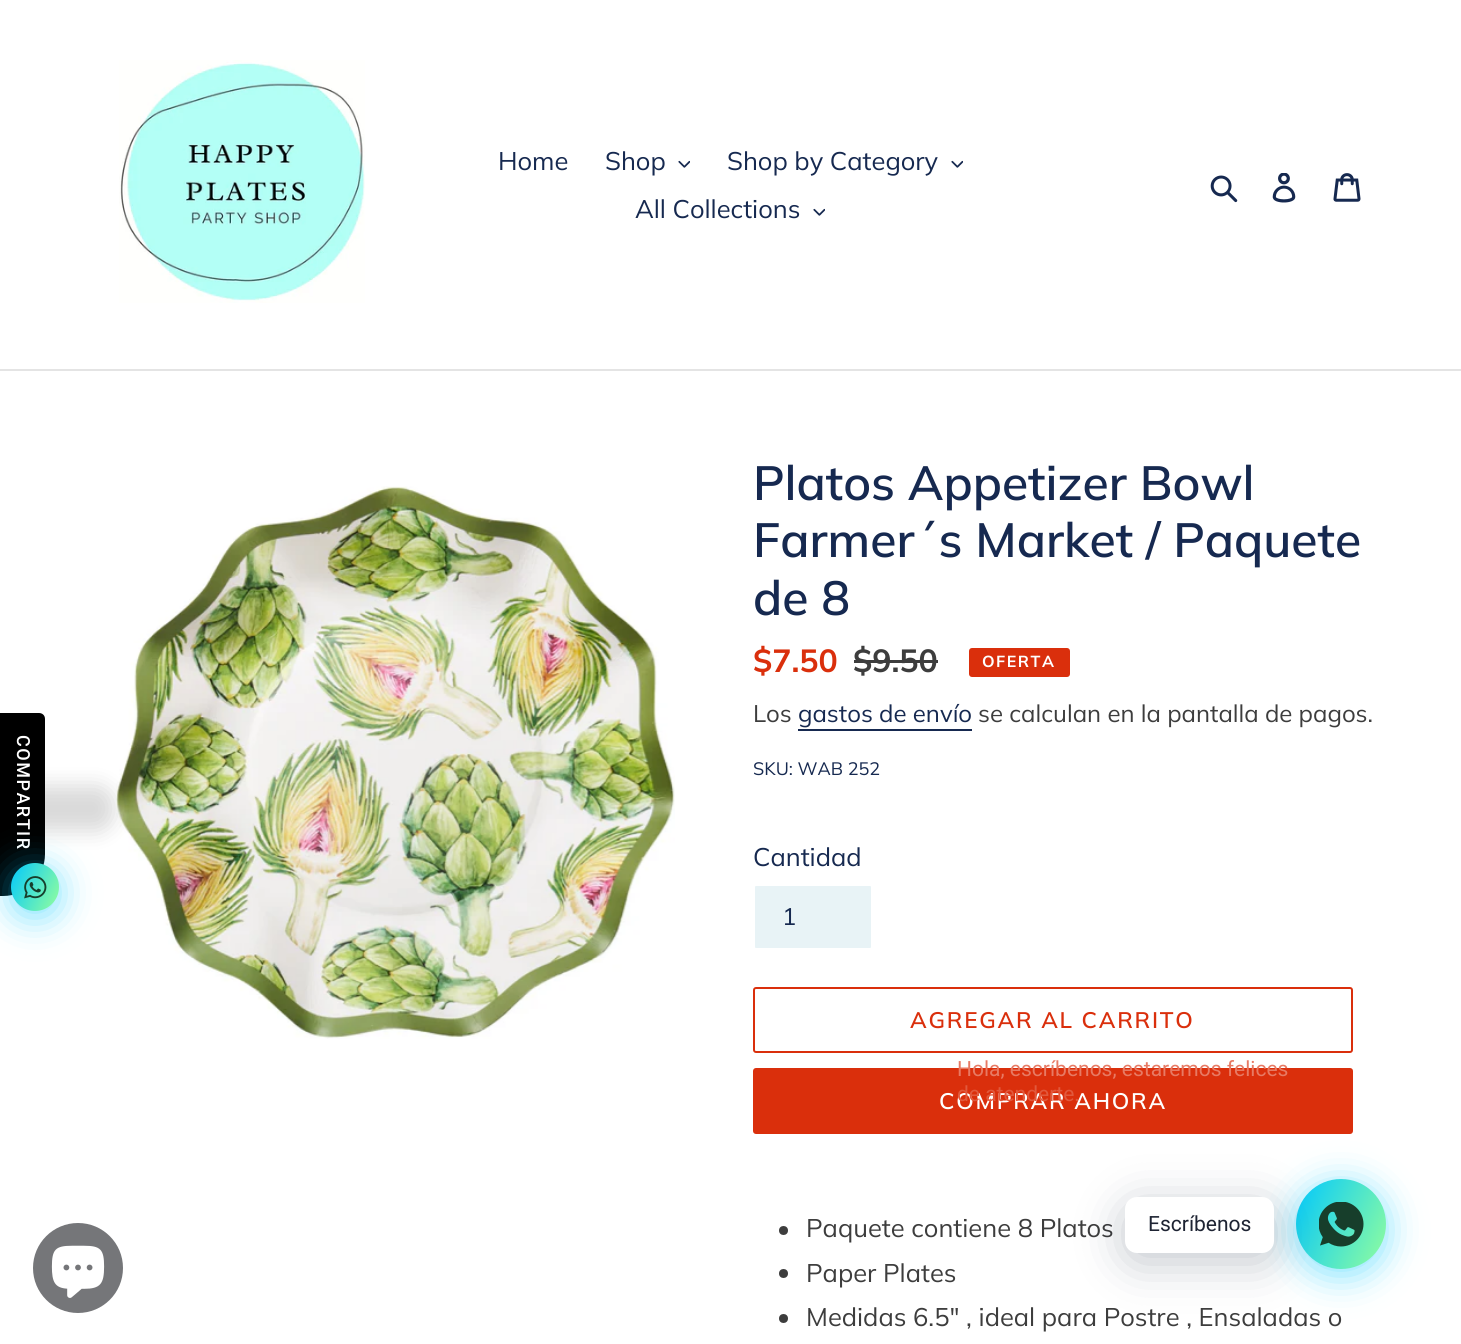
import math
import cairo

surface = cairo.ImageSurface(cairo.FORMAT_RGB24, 1461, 1344)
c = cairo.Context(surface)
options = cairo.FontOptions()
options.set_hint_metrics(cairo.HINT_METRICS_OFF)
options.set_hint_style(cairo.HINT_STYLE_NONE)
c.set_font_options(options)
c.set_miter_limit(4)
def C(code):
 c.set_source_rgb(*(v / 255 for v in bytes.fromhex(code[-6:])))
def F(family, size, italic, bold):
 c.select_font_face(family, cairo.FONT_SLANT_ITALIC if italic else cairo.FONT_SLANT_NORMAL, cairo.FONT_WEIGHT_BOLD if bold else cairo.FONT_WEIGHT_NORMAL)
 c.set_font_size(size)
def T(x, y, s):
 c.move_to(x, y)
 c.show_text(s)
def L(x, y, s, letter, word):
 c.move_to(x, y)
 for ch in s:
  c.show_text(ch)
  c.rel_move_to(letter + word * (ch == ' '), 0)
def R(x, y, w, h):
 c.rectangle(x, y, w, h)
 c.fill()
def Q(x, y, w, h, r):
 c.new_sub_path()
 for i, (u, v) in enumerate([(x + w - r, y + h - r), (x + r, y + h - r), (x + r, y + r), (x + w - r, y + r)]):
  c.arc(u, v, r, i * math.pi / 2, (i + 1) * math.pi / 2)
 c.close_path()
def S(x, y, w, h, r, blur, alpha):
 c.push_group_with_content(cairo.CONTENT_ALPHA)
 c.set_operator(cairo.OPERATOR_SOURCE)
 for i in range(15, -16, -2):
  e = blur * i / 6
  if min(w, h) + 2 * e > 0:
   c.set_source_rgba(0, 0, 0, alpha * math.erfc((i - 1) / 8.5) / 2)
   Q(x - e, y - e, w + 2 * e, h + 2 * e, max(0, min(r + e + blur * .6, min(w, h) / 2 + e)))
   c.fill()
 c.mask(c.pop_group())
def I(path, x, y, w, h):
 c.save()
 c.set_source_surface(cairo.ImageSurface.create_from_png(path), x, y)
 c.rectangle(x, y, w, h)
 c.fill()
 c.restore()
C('ffffff')
c.paint()
C('e4e4e4')
R(0,369,1461,2)
I('1.png',119,60,246,243)
F('Muli',25.5,0,0)
C('162950')
T(498,170,'Home')
T(605,170,'Shop')
I('2.png',678,160,12,8)
T(727,170,'Shop by Category')
I('2.png',951,160,12,8)
T(635,218,'All Collections')
I('2.png',813,208,12,8)
I('3.png',1210,175,28,28)
I('4.png',1272,173,24,30)
I('5.png',1333,173,28,29)
I('6.png',116,486,559,553)
F('Muli SemiBold',48,0,0)
T(753,500,'Platos Appetizer Bowl')
T(753,557,'Farmer´s Market / Paquete')
T(753,615,'de 8')
F('Muli',32,0,1)
C('da2f0c')
T(753,672,'$7.50')
C('3d3d3d')
T(853,672,'$9.50')
R(854,660,84,3)
C('da2f0c')
Q(970,649,99,27,2)
c.fill_preserve()
c.stroke()
F('Muli',16,0,1)
C('ffffff')
L(982,667,'OFERTA',1.5,0)
F('Muli',24,0,0)
C('3d3d3d')
T(753,722,'Los')
C('162950')
T(798,722,'gastos de envío')
R(798,729,174,2)
C('3d3d3d')
T(978,722,'se calculan en la pantalla de pagos.')
F('Muli',18,0,0)
C('162950')
T(753,775,'SKU: WAB 252')
F('Muli',25.5,0,0)
T(753,866,'Cantidad')
C('e8f3f6')
Q(754,885,118,64,2)
c.fill_preserve()
C('ffffff')
c.stroke()
F('Muli',24,0,0)
C('162950')
T(782,925,'1')
Q(754,988,598,64,2)
C('da2f0c')
c.stroke()
F('Muli SemiBold',22.5,0,0)
L(910,1028,'AGREGAR AL CARRITO',1.75,0)
Q(753,1068,600,66,3)
c.fill()
C('ffffff')
L(939,1109,'COMPRAR AHORA',1.75,0)
C('3d3d3d')
c.new_path()
c.arc(783.5,1230.5,4.5,0,2 * math.pi)
c.fill()
F('Muli',25.5,0,0)
T(806,1237,'Paquete contiene 8 Platos')
c.new_path()
c.arc(783.5,1273.5,4.5,0,2 * math.pi)
c.fill()
T(806,1282,'Paper Plates')
c.new_path()
c.arc(783.5,1318.5,4.5,0,2 * math.pi)
c.fill()
T(806,1326,'Medidas 6.5" , ideal para Postre , Ensaladas o')
C('000000')
S(-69,786,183,45,42,10.5,.15)
C('000000')
c.new_path()
c.move_to(0,896)
c.line_to(0,713)
c.line_to(39,713)
c.curve_to(42,713,45,715,45,719)
c.line_to(45,854)
c.curve_to(45,877,26,896,3,896)
c.close_path()
c.fill()
F('Roboto Medium',18,0,0)
C('ffffff')
c.save()
c.translate(17,735)
c.rotate(90 * math.pi / 180)
L(0,0,'COMPARTIR',1.5,0)
c.restore()
C('00c9ff')
S(11,869,48,48,24,18,.5)
gradient = cairo.LinearGradient(5.6,873,63,900)
gradient.add_color_stop_rgba(0,0,0.788,1,1)
gradient.add_color_stop_rgba(1,0.573,0.996,0.616,1)
c.set_source(gradient)
c.arc(35,887,24,0,2 * math.pi)
c.fill()
I('7.png',24,876,23,23)
F('Roboto',21,0,0)
C('e77a64')
T(957,1076,'Hola, escríbenos, estaremos felices')
C('e1593d')
T(957,1101,'de atenderte.')
C('00c9ff')
S(1296,1185,90,90,45,18,.5)
gradient = cairo.LinearGradient(1287,1199,1395,1249)
gradient.add_color_stop_rgba(0,0,0.788,1,1)
gradient.add_color_stop_rgba(1,0.573,0.996,0.616,1)
c.set_source(gradient)
c.arc(1341,1224,45,0,2 * math.pi)
c.fill()
C('00122e')
S(1125,1206,149,56,12,24,.24)
C('ffffff')
Q(1125,1197,149,56,12)
c.fill()
C('1e2433')
T(1148,1231,'Escríbenos')
I('8.png',1319,1202,45,45)
C('757679')
c.arc(78,1268,45,0,2 * math.pi)
c.fill()
I('9.png',51,1245,54,53)
surface.write_to_png('o.png')
